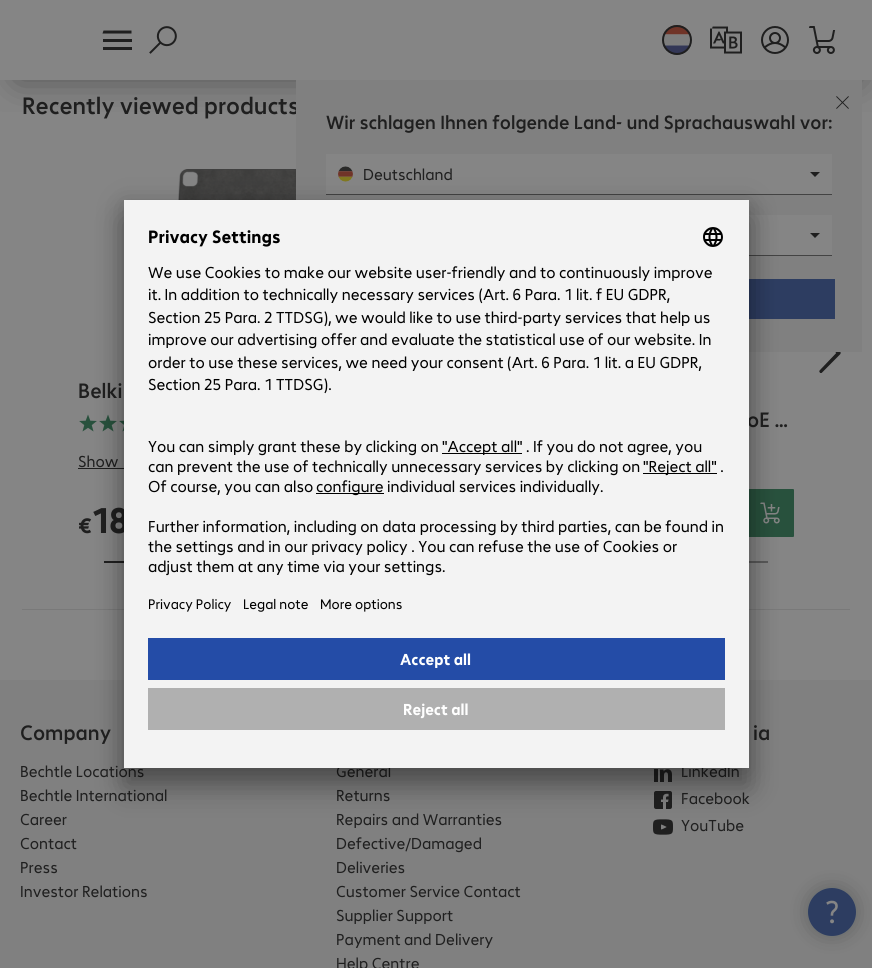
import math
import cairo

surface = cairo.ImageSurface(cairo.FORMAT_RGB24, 872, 968)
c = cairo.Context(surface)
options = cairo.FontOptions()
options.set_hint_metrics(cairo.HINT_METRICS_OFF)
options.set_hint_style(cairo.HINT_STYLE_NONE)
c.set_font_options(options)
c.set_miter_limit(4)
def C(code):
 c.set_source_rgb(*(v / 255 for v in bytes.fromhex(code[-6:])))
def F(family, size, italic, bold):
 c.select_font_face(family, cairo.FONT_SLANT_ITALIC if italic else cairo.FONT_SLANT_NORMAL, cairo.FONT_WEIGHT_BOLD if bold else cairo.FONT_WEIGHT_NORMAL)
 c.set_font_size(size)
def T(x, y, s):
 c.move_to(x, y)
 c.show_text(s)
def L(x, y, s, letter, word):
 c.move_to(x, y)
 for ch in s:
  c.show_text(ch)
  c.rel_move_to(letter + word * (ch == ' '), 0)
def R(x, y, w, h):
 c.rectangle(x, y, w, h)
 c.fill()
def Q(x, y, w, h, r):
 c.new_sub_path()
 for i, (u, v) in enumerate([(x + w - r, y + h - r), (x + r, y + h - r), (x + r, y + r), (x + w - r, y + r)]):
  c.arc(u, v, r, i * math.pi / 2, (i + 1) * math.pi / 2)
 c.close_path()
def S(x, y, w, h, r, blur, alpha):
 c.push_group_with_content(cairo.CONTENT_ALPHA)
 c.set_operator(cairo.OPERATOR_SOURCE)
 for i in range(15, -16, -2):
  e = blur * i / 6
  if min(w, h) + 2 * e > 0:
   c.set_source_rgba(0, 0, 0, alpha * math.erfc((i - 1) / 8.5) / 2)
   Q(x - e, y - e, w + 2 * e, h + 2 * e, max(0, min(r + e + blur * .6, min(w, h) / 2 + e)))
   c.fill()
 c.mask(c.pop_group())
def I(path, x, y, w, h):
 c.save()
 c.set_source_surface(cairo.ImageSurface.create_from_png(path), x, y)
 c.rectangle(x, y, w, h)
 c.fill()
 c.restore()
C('858585')
c.paint()
C('797979')
R(22,609,828,1)
F('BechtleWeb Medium',24,0,0)
C('1f1f1f')
T(22,114,'Recently viewed products')
I('1.png',819,352,22,21)
I('2.png',178,169,118,31)
F('BechtleWeb Medium',21,0,0)
T(78,398,'Belki')
I('3.png',79,414,18,18)
I('3.png',99,414,18,18)
I('4.png',119,420,5,12)
F('BechtleWeb',16,0,0)
T(78,467,'Show')
R(78,468,46,1)
F('BechtleWeb',21,0,1)
L(78,533,'€',-1,0)
F('BechtleWeb',36,0,1)
L(91,533,'18',-1,0)
F('BechtleWeb Medium',21,0,0)
T(747,427,'oE …')
C('28513d')
Q(746,489,48,48,1)
c.fill()
I('5.png',760,502,20,22)
C('1f1f1f')
R(104,561,20,2)
C('595959')
R(749,561,19,2)
C('808080')
R(0,680,872,288)
C('1f1f1f')
T(20,740,'Company')
F('BechtleWeb',16,0,0)
T(20,777,'Bechtle Locations')
T(20,801,'Bechtle International')
T(20,825,'Career')
T(20,849,'Contact')
T(20,873,'Press')
T(20,897,'Investor Relations')
T(336,777,'General')
T(336,801,'Returns')
T(336,825,'Repairs and Warranties')
T(336,849,'Defective/Damaged')
T(336,873,'Deliveries')
T(336,897,'Customer Service Contact')
T(336,921,'Supplier Support')
T(336,945,'Payment and Delivery')
T(336,969,'Help Centre')
F('BechtleWeb Medium',21,0,0)
T(753,740,'ia')
I('6.png',654,769,18,13)
F('BechtleWeb',16,0,0)
T(681,777,'LinkedIn')
I('7.png',654,791,18,18)
T(681,804,'Facebook')
I('8.png',653,819,20,16)
T(681,831,'YouTube')
c.save()
c.rectangle(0,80,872,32)
c.clip()
C('1f1f1f')
S(17,29,842,50,0,18.5,.52)
c.restore()
R(103,47,29,3)
R(103,39,29,3)
c.new_path()
c.move_to(103.5,30.5)
c.line_to(131.5,30.5)
c.line_to(131.5,33.5)
c.line_to(102.5,33.5)
c.close_path()
c.fill()
I('9.png',149,26,28,28)
I('10.png',662,25,30,30)
c.arc(677,40,14,0,2 * math.pi)
c.stroke()
I('11.png',710,26,32,28)
I('12.png',761,26,28,28)
I('13.png',809,26,27,28)
C('808080')
R(296,80,566,272)
I('14.png',836,96,13,13)
F('BechtleWeb Medium',19.2,0,0)
C('1f1f1f')
T(326,129,'Wir schlagen Ihnen folgende Land- und Sprachauswahl vor:')
C('858585')
R(326,154,506,40)
C('434343')
R(326,194,506,1)
I('15.png',338,166,15,16)
F('BechtleWeb',16,0,0)
C('1f1f1f')
T(363,180,'Deutschland')
c.new_path()
c.move_to(810,172)
c.line_to(820,172)
c.line_to(815,177)
c.close_path()
c.fill()
C('858585')
R(749,215,83,40)
C('434343')
R(749,255,83,1)
C('1f1f1f')
c.new_path()
c.move_to(810,233)
c.line_to(820,233)
c.line_to(815,238)
c.close_path()
c.fill()
C('2d3d61')
R(749,279,86,40)
C('000000')
S(124,220,625,568,0,14,.3)
S(124,205,625,568,0,13,.22)
C('f3f3f3')
R(124,200,625,568)
F('BechtleWeb',18,0,1)
C('000000')
T(148,243,'Privacy Settings')
I('16.png',703,227,20,20)
F('BechtleWeb',16,0,0)
T(148,278,'We use Cookies to make our website user-friendly and to continuously improve')
T(148,300,'it. In addition to technically necessary services (Art. 6 Para. 1 lit. f EU GDPR,')
T(148,323,'Section 25 Para. 2 TTDSG), we would like to use third-party services that help us')
T(148,345,'improve our advertising offer and evaluate the statistical use of our website. In')
T(148,368,'order to use these services, we need your consent (Art. 6 Para. 1 lit. a EU GDPR,')
T(148,390,'Section 25 Para. 1 TTDSG).')
T(148,452,'You can simply grant these by clicking on')
R(442,453,80,1)
T(442,452,'"Accept all" . If you do not agree, you')
T(148,472,'can prevent the use of technically unnecessary services by clicking on')
R(643,473,74,1)
T(643,472,'"Reject all" .')
T(148,492,'Of course, you can also')
R(316,493,68,1)
T(316,492,'configure individual services individually.')
T(148,532,'Further information, including on data processing by third parties, can be found in')
T(148,552,'the settings and in our privacy policy . You can refuse the use of Cookies or')
T(148,572,'adjust them at any time via your settings.')
F('BechtleWeb',14,0,0)
T(148,609,'Privacy Policy')
T(243,609,'Legal note')
T(320,609,'More options')
C('244ca7')
R(148,638,577,42)
F('BechtleWeb',16,0,1)
C('ffffff')
T(400,665,'Accept all')
C('b0b0b0')
R(148,688,577,42)
C('ffffff')
T(403,715,'Reject all')
C('1f2523')
S(808,888,48,48,24,10,.16)
S(808,888,48,48,24,10,.16)
C('2d3d61')
c.arc(832,912,24,0,2 * math.pi)
c.fill()
I('17.png',826,900,12,24)
surface.write_to_png('o.png')
